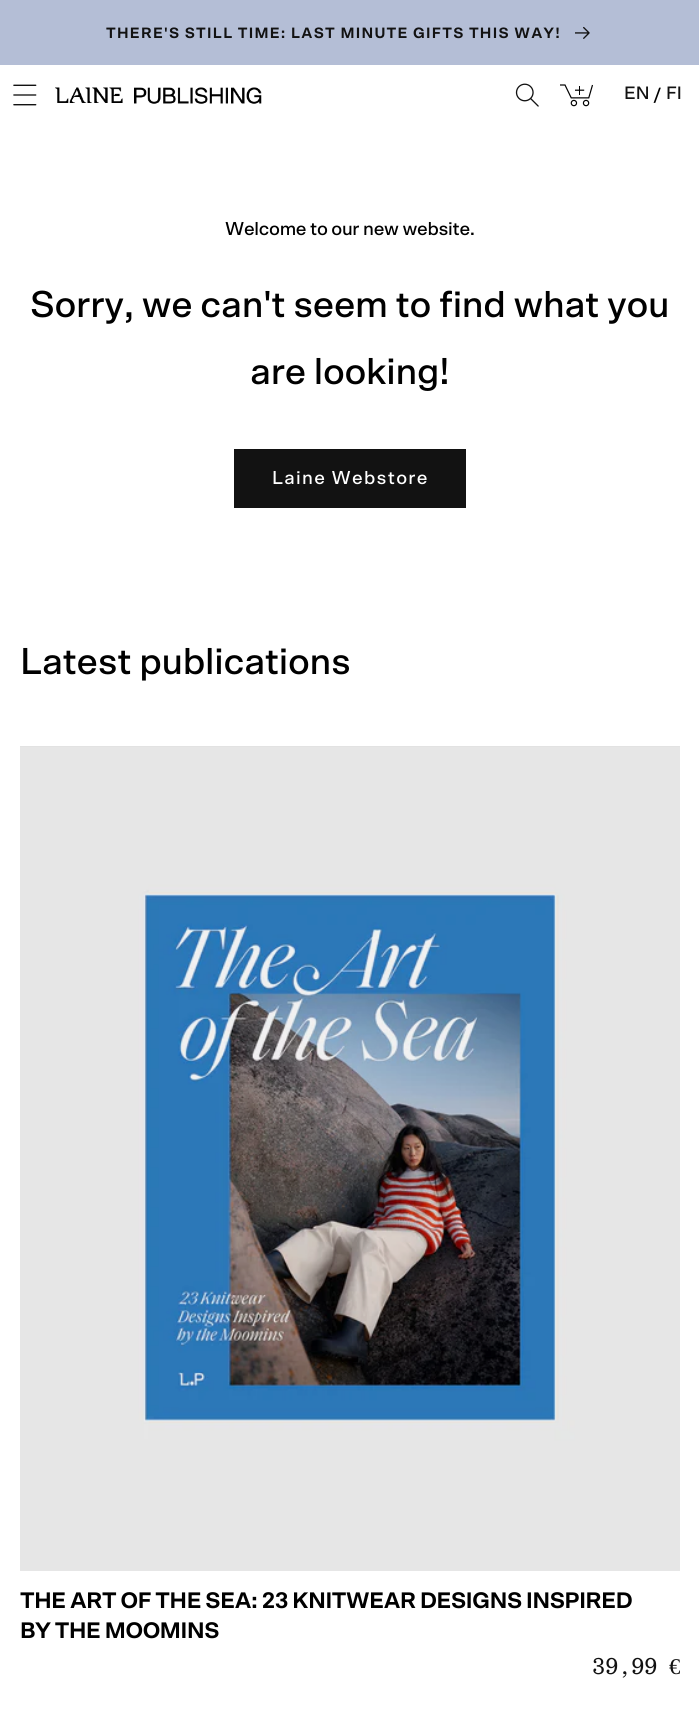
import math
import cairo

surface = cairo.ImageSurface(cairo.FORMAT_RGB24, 699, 1731)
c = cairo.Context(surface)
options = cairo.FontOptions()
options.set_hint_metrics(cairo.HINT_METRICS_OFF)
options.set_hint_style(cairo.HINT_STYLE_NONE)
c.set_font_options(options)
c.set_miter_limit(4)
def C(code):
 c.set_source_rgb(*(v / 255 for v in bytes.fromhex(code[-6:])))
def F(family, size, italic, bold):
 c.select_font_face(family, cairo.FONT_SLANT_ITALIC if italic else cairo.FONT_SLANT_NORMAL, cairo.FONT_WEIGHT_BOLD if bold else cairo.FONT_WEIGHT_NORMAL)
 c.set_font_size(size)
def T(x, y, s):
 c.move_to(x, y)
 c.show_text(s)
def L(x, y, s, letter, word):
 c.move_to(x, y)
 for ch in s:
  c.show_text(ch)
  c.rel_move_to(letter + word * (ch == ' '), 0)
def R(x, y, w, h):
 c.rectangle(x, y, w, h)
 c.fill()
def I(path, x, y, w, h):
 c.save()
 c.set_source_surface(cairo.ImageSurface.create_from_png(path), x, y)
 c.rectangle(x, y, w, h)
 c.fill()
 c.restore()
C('ffffff')
c.paint()
C('b4bed6')
R(0,0,699,65)
F('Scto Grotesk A',15,0,1)
C('121212')
L(106,38,'THERE\'S STILL TIME: LAST MINUTE GIFTS THIS WAY!',1.25,0)
I('1.png',575,26,15,13)
I('2.png',13,84,24,22)
I('3.png',55,87,207,17)
I('4.png',515,83,24,24)
I('5.png',560,84,33,23)
F('Scto Grotesk A Medium',18,0,0)
T(624,99,'EN')
F('Scto Grotesk A Medium',18.75,0,0)
C('000000')
L(653,101,'/',-.3,0)
F('Scto Grotesk A Medium',18,0,0)
C('121212')
T(666,99,'FI')
F('Scto Grotesk A Medium',18.75,0,0)
C('000000')
L(225,235,'Welcome to our new website.',-.3,0)
F('Scto Grotesk A Medium',37.5,0,0)
L(30,317,'Sorry, we can\'t seem to find what you',-.3,0)
L(250,384,'are looking!',-.3,0)
C('121212')
R(234,449,232,59)
F('Scto Grotesk A Medium',18.75,0,0)
C('ffffff')
L(272,484,'Laine Webstore',1.25,0)
F('Scto Grotesk A Medium',37.5,0,0)
C('000000')
L(20,674,'Latest publications',-.3,0)
C('dcdcdc')
R(20,746,660,1)
I('6.png',20,746,660,825)
F('Scto Grotesk A',22.5,0,1)
C('000000')
L(20,1608,'THE ART OF THE SEA: 23 KNITWEAR DESIGNS INSPIRED',-.35,0)
L(20,1638,'BY THE MOOMINS',-.35,0)
F('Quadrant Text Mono',22.5,0,0)
C('121212')
L(592,1674,'39,99',-.5,0)
F('Liberation Serif',22.5,0,0)
L(669,1674,'€',-.5,0)
surface.write_to_png('o.png')
